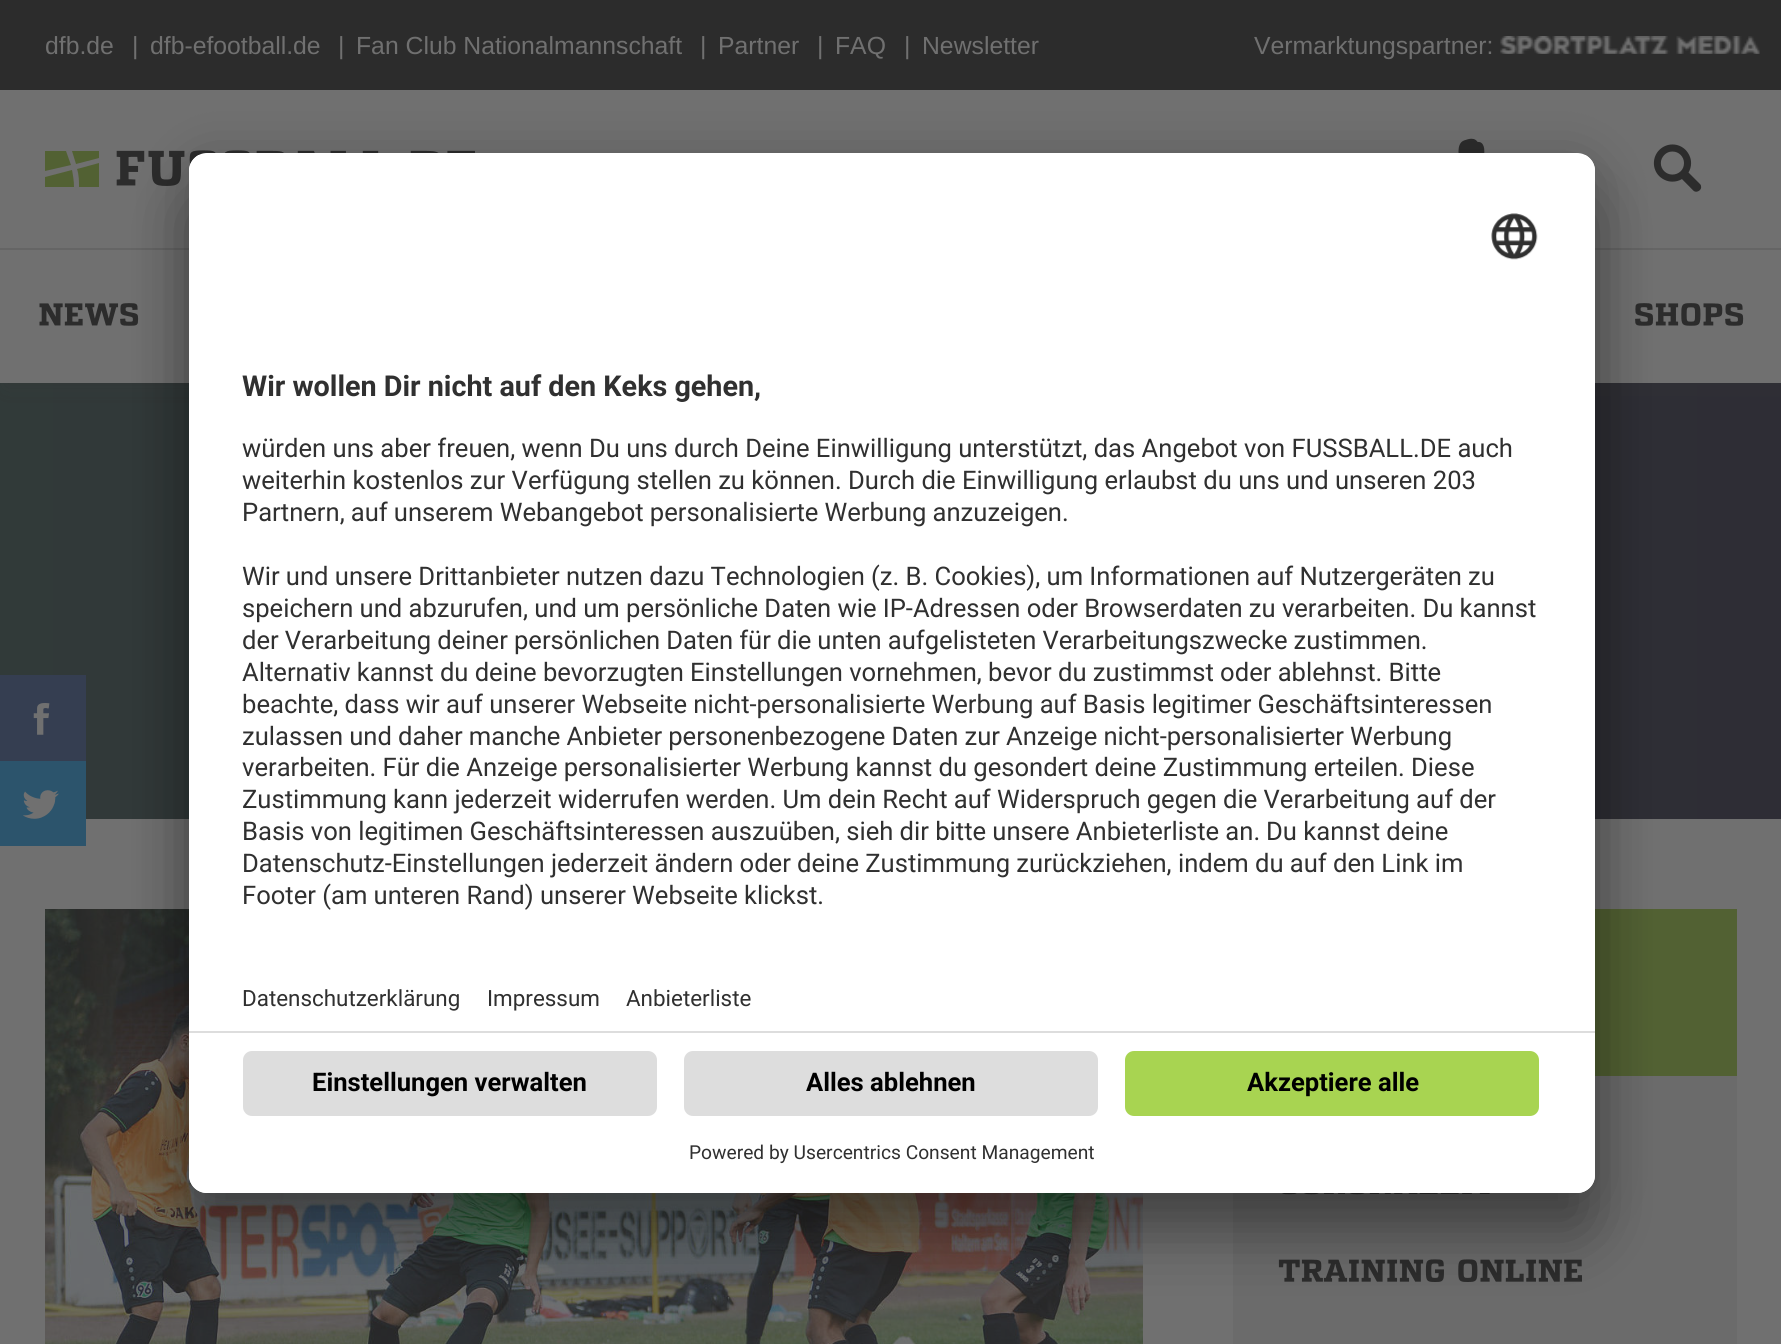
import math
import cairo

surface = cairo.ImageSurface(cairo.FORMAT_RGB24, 1781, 1344)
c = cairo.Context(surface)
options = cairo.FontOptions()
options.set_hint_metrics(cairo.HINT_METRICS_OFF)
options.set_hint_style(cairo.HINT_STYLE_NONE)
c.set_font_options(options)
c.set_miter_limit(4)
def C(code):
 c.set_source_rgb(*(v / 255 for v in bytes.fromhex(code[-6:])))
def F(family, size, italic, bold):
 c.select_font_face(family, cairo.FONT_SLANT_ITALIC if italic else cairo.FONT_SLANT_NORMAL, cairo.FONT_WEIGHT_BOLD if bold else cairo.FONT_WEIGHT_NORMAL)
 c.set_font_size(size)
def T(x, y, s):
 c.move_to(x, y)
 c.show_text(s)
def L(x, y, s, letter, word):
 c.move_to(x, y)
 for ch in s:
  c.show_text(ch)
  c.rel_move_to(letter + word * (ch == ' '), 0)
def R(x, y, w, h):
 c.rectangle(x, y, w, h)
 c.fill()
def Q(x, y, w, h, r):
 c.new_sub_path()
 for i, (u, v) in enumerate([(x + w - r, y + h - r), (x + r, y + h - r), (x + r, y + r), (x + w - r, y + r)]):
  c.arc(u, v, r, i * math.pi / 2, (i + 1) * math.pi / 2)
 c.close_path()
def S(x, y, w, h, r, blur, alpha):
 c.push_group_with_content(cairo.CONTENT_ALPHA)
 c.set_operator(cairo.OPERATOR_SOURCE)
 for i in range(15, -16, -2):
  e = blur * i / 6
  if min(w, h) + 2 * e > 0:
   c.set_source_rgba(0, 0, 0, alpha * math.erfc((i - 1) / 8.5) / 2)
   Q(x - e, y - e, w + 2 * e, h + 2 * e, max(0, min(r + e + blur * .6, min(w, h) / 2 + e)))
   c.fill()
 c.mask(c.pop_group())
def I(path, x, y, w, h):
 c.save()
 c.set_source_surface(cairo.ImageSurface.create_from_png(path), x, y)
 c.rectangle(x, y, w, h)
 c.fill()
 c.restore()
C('707070')
c.paint()
gradient = cairo.LinearGradient(0,601,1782,601)
gradient.add_color_stop_rgba(0,0.192,0.227,0.224,1)
gradient.add_color_stop_rgba(1,0.18,0.176,0.208,1)
c.set_source(gradient)
R(0,383,1781,436)
C('333333')
S(5,5,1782,382,0,11,.3)
C('707070')
R(0,90,1781,293)
C('2c2c2c')
R(0,0,1781,90)
F('Liberation Sans',24.75,0,0)
C('707070')
T(45,54,'dfb.de')
T(132,54,'|')
T(150,54,'dfb-efootball.de')
T(338,54,'|')
T(356,54,'Fan Club Nationalmannschaft')
T(700,54,'|')
T(718,54,'Partner')
T(817,54,'|')
T(835,54,'FAQ')
T(904,54,'|')
T(922,54,'Newsletter')
T(1254,54,'Vermarktungspartner:')
I('1.png',1500,36,260,18)
C('526133')
c.set_fill_rule(cairo.FILL_RULE_EVEN_ODD)
c.new_path()
c.move_to(72,170)
c.curve_to(73,175,74,181,74,187)
c.line_to(45,187)
c.line_to(45,177)
c.close_path()
c.move_to(45,171)
c.line_to(45,151)
c.line_to(66,151)
c.line_to(71,165)
c.close_path()
c.move_to(79,187)
c.curve_to(79,181,79,175,77,169)
c.line_to(99,163)
c.line_to(99,187)
c.close_path()
c.move_to(99,151)
c.line_to(99,158)
c.line_to(76,164)
c.line_to(72,151)
c.close_path()
c.fill()
I('2.png',116,150,359,36)
I('3.png',1458,138,27,15)
I('4.png',1653,144,49,48)
C('656565')
R(0,248,1781,2)
I('5.png',39,303,100,23)
I('6.png',1635,303,109,23)
I('8.png',45,909,1098,435)
C('526133')
R(1595,909,142,167)
C('6b6b6b')
R(1233,1076,504,268)
I('9.png',1282,1193,208,2)
I('10.png',1278,1259,304,23)
C('000000')
S(189,198,1406,1040,18,31.5,.3)
S(189,164,1406,1040,18,29,.22)
C('ffffff')
Q(189,153,1406,1040,18)
c.fill()
c.save()
c.set_fill_rule(cairo.FILL_RULE_WINDING)
Q(189,153,1406,1040,18)
c.clip()
c.new_path()
c.move_to(207,153)
c.line_to(1577,153)
c.curve_to(1587,153,1595,161,1595,171)
c.line_to(1595,1031)
c.line_to(189,1031)
c.line_to(189,171)
c.curve_to(189,161,197,153,207,153)
c.close_path()
c.clip()
R(189,155,1406,876)
c.restore()
I('7.png',1491,213,47,47)
F('Roboto',28.75,0,1)
C('303030')
T(242,396,'Wir wollen Dir nicht auf den Keks gehen,')
F('Roboto',25.6,0,0)
T(242,457,'würden uns aber freuen, wenn Du uns durch Deine Einwilligung unterstützt, das Angebot von FUSSBALL.DE auch')
T(242,489,'weiterhin kostenlos zur Verfügung stellen zu können. Durch die Einwilligung erlaubst du uns und unseren 203')
L(242,521,'Partnern, auf unserem Webangebot personalisierte Werbung anzuzeigen.',0,-.25)
L(242,585,'Wir und unsere Drittanbieter nutzen dazu Technologien (z. B. Cookies), um Informationen auf Nutzergeräten zu',0,-.1)
L(242,617,'speichern und abzurufen, und um persönliche Daten wie IP-Adressen oder Browserdaten zu verarbeiten. Du kannst',0,-.1)
L(242,649,'der Verarbeitung deiner persönlichen Daten für die unten aufgelisteten Verarbeitungszwecke zustimmen.',0,-.25)
L(242,681,'Alternativ kannst du deine bevorzugten Einstellungen vornehmen, bevor du zustimmst oder ablehnst. Bitte',0,-.1)
L(242,713,'beachte, dass wir auf unserer Webseite nicht-personalisierte Werbung auf Basis legitimer Geschäftsinteressen',0,-.1)
L(242,745,'zulassen und daher manche Anbieter personenbezogene Daten zur Anzeige nicht-personalisierter Werbung',0,-.25)
L(242,776,'verarbeiten. Für die Anzeige personalisierter Werbung kannst du gesondert deine Zustimmung erteilen. Diese',0,-.1)
L(242,808,'Zustimmung kann jederzeit widerrufen werden. Um dein Recht auf Widerspruch gegen die Verarbeitung auf der',0,-.1)
L(242,840,'Basis von legitimen Geschäftsinteressen auszuüben, sieh dir bitte unsere Anbieterliste an.',0,-.1)
T(1266,840,'Du kannst deine')
L(242,872,'Datenschutz-Einstellungen jederzeit ändern oder deine Zustimmung zurückziehen, indem du auf den Link im',0,-.1)
L(242,904,'Footer (am unteren Rand) unserer Webseite klickst.',0,-.1)
F('Roboto',22.4,0,0)
T(242,1006,'Datenschutzerklärung')
T(487,1006,'Impressum')
T(626,1006,'Anbieterliste')
C('ffffff')
c.new_path()
c.move_to(189,1031)
c.line_to(1595,1031)
c.line_to(1595,1175)
c.curve_to(1595,1185,1587,1193,1577,1193)
c.line_to(207,1193)
c.curve_to(197,1193,189,1185,189,1175)
c.close_path()
c.fill()
C('dddddd')
R(189,1031,1406,2)
Q(243,1051,414,65,9)
c.fill()
F('Roboto',25.6,0,1)
C('000000')
T(312,1091,'Einstellungen verwalten')
C('dddddd')
Q(684,1051,414,65,9)
c.fill()
C('000000')
T(806,1091,'Alles ablehnen')
C('a8d451')
Q(1125,1051,414,65,9)
c.fill()
C('000000')
T(1247,1091,'Akzeptiere alle')
F('Roboto',19.2,0,0)
C('303030')
T(689,1159,'Powered by Usercentrics Consent Management')
C('353e51')
R(0,675,86,86)
I('11.png',33,703,17,32)
C('2c546c')
R(0,761,86,85)
I('12.png',23,790,36,29)
surface.write_to_png('o.png')
